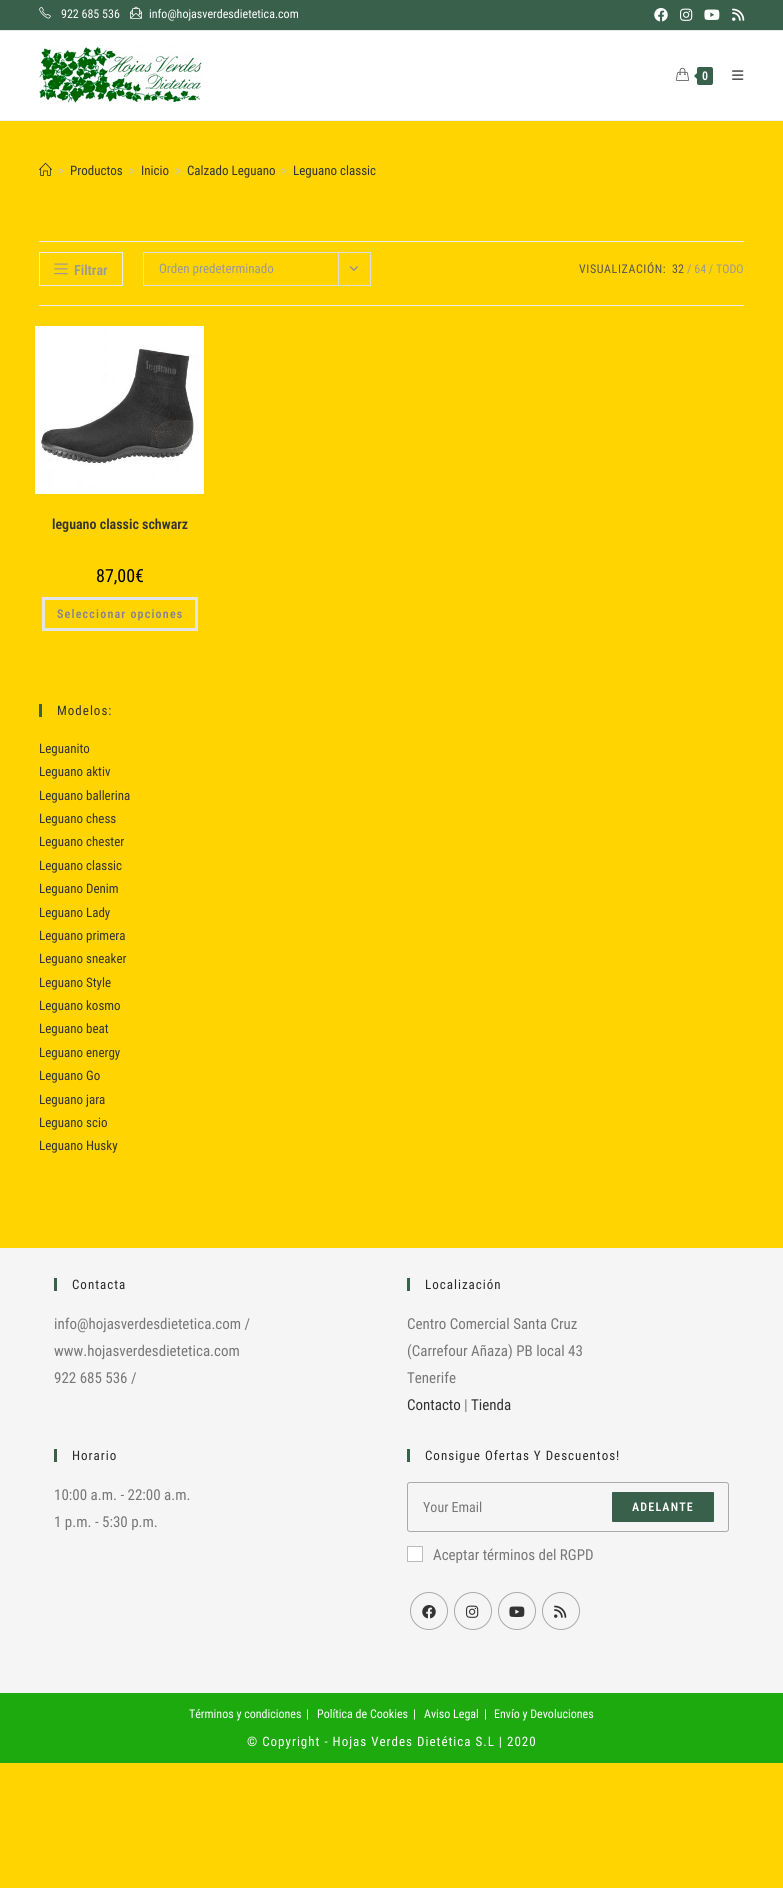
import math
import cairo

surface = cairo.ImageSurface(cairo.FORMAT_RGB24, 783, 1888)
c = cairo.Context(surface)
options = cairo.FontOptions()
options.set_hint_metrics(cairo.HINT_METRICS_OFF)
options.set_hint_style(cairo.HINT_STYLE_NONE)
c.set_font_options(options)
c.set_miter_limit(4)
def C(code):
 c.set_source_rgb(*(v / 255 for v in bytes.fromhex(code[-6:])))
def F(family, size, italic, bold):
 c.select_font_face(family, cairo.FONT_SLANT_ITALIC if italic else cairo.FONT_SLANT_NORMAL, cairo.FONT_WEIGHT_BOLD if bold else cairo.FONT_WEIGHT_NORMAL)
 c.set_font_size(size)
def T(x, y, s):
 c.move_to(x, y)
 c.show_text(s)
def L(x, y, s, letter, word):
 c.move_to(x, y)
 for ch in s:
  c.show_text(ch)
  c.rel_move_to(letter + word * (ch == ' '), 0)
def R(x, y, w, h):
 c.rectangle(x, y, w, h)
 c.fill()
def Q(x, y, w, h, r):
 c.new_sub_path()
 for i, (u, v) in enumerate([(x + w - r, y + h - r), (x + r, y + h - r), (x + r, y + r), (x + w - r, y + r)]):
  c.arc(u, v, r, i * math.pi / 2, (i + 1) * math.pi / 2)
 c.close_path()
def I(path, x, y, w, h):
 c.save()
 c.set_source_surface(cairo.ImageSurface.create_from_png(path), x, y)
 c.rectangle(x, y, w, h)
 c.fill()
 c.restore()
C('ffd400')
c.paint()
C('39604b')
R(0,0,783,30)
C('e8e8e8')
R(0,30,783,1)
I('1.png',39,6,12,13)
F('Roboto Condensed',12,0,0)
C('ffffff')
T(61,18,'922 685 536')
I('2.png',130,6,12,13)
T(149,18,'info@hojasverdesdietetica.com')
I('3.png',654,8,14,14)
I('4.png',680,8,13,13)
I('5.png',704,9,16,11)
I('6.png',732,8,13,13)
R(0,31,783,89)
C('f1f1f1')
R(0,120,783,1)
I('7.png',39,47,163,56)
I('8.png',676,67,13,14)
C('39604b')
Q(697,67,16,18,2)
c.fill()
c.new_path()
c.move_to(699,71)
c.line_to(699,81)
c.line_to(694,76)
c.close_path()
c.fill()
F('Roboto Condensed SemiBold',12,0,0)
C('ffffff')
L(702,80,'0',.6,0)
I('9.png',732,70,12,10)
I('10.png',39,162,13,14)
F('Roboto Condensed',13,0,0)
C('c6c6c6')
T(58,175,'>')
C('333333')
T(70,175,'Productos')
C('c6c6c6')
T(129,175,'>')
C('333333')
T(141,175,'Inicio')
C('c6c6c6')
T(175,175,'>')
C('333333')
T(187,175,'Calzado Leguano')
C('c6c6c6')
T(281,175,'>')
C('333333')
T(293,175,'Leguano classic')
C('eaeaea')
R(39,241,705,1)
R(39,305,705,1)
c.rectangle(39.5,252.5,83,33)
c.set_line_width(1)
c.stroke()
I('11.png',54,263,14,12)
F('Roboto Condensed SemiBold',14,0,0)
C('999999')
T(74,275,'Filtrar')
c.rectangle(143.5,252.5,227,33)
C('dddddd')
c.stroke()
F('Roboto Condensed',13,0,0)
C('999999')
T(159,273,'Orden predeterminado')
C('dddddd')
R(338,253,1,32)
I('12.png',349,266,9,5)
F('Roboto Condensed',12,0,0)
C('555555')
L(579,273,'VISUALIZACIÓN:',.6,0)
T(672,273,'32')
C('999999')
T(687,273,'/ 64 / TODO')
I('13.png',35,326,169,168)
F('Roboto Condensed SemiBold',14,0,0)
C('333333')
T(52,529,'leguano classic schwarz')
F('Roboto Condensed',18,0,0)
C('000000')
T(96,582,'87,00€')
c.rectangle(43.5,598.5,153,31)
C('e4e4e4')
c.set_line_width(3)
c.stroke()
F('Roboto Condensed SemiBold',12,0,0)
C('848494')
L(57,618,'Seleccionar opciones',1.2,0)
C('39604b')
R(39,704,3,13)
F('Roboto Condensed',13,0,0)
C('333333')
L(57,715,'Modelos:',1,0)
T(39,753,'Leguanito')
T(39,776,'Leguano aktiv')
T(39,800,'Leguano ballerina')
T(39,823,'Leguano chess')
T(39,846,'Leguano chester')
T(39,870,'Leguano classic')
T(39,893,'Leguano Denim')
T(39,917,'Leguano Lady')
T(39,940,'Leguano primera')
T(39,963,'Leguano sneaker')
T(39,987,'Leguano Style')
T(39,1010,'Leguano kosmo')
T(39,1033,'Leguano beat')
T(39,1057,'Leguano energy')
T(39,1080,'Leguano Go')
T(39,1104,'Leguano jara')
T(39,1127,'Leguano scio')
T(39,1150,'Leguano Husky')
C('f5f5f5')
R(0,1248,783,445)
C('39604b')
R(54,1278,3,13)
C('292929')
L(72,1289,'Contacta',1,0)
F('Roboto Condensed',15,0,0)
C('777777')
T(54,1329,'info@hojasverdesdietetica.com /')
T(54,1356,'www.hojasverdesdietetica.com')
T(54,1383,'922 685 536 /')
C('39604b')
R(407,1278,3,13)
F('Roboto Condensed',13,0,0)
C('292929')
L(425,1289,'Localización',1,0)
F('Roboto Condensed',15,0,0)
C('777777')
T(407,1329,'Centro Comercial Santa Cruz')
T(407,1356,'(Carrefour Añaza) PB local 43')
T(407,1383,'Tenerife')
C('333333')
T(407,1410,'Contacto')
C('777777')
T(464,1410,'|')
C('333333')
T(471,1410,'Tienda')
C('39604b')
R(54,1449,3,13)
F('Roboto Condensed',13,0,0)
C('292929')
L(72,1460,'Horario',1,0)
F('Roboto Condensed',15,0,0)
C('777777')
T(54,1500,'10:00 a.m. - 22:00 a.m.')
T(54,1527,'1 p.m. - 5:30 p.m.')
C('39604b')
R(407,1449,3,13)
F('Roboto Condensed',13,0,0)
C('292929')
L(425,1460,'Consigue Ofertas Y Descuentos!',1,0)
Q(407.5,1482.5,321,49,2.5)
C('aaaaaa')
c.set_line_width(1)
c.stroke()
F('Roboto Condensed',14,0,0)
C('777777')
T(423,1512,'Your Email')
C('39604b')
Q(612,1492,102,30,1)
c.fill()
F('Roboto Condensed SemiBold',12,0,0)
C('ffffff')
L(632,1511,'ADELANTE',1.2,0)
c.rectangle(407.5,1546.5,15,15)
c.fill_preserve()
C('bbbbbb')
c.stroke()
F('Roboto Condensed',15,0,0)
C('777777')
T(433,1560,'Aceptar términos del RGPD')
c.new_path()
c.arc(429,1611,18.5,0,2 * math.pi)
C('aaaaaa')
c.stroke()
I('14.png',422,1605,14,14)
c.arc(473,1611,18.5,0,2 * math.pi)
c.stroke()
I('15.png',466,1605,13,13)
c.arc(517,1611,18.5,0,2 * math.pi)
c.stroke()
I('16.png',509,1606,16,11)
c.arc(561,1611,18.5,0,2 * math.pi)
c.stroke()
I('17.png',554,1605,13,13)
C('1caa0f')
R(0,1693,783,70)
F('Roboto Condensed',12,0,0)
C('ffffff')
T(189,1718,'Términos y condiciones')
T(306,1718,'|')
T(317,1718,'Política de Cookies')
T(413,1718,'|')
T(424,1718,'Aviso Legal')
T(484,1718,'|')
T(494,1718,'Envío y Devoluciones')
F('Roboto Condensed',13,0,0)
L(247,1746,'© Copyright - Hojas Verdes Dietética S.L | 2020',1,0)
surface.write_to_png('o.png')
